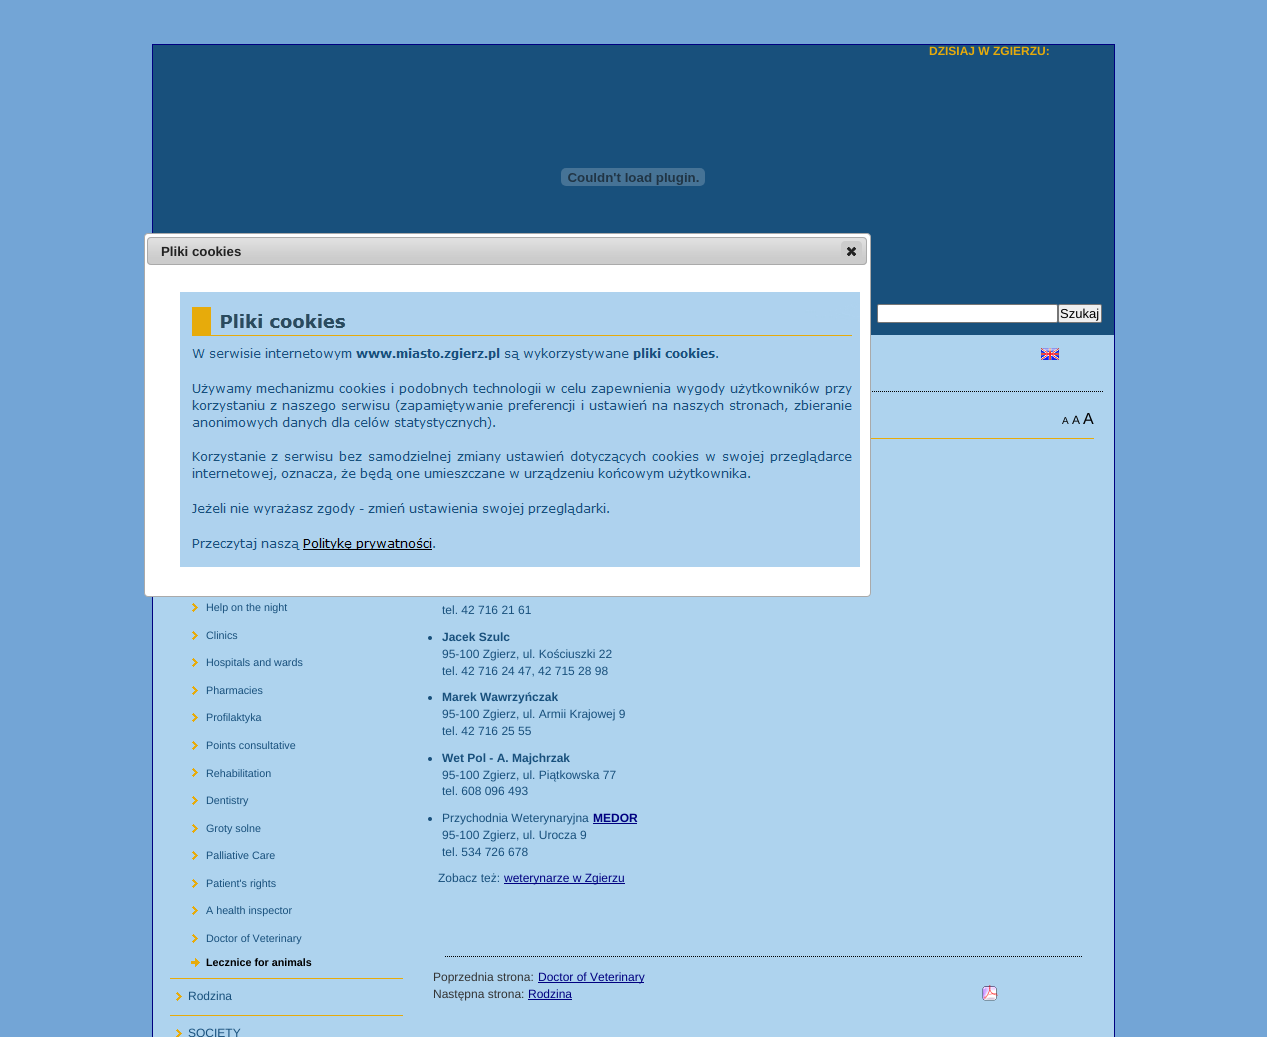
import math
import cairo

surface = cairo.ImageSurface(cairo.FORMAT_RGB24, 1267, 1037)
c = cairo.Context(surface)
options = cairo.FontOptions()
options.set_hint_metrics(cairo.HINT_METRICS_OFF)
options.set_hint_style(cairo.HINT_STYLE_NONE)
c.set_font_options(options)
c.set_miter_limit(4)
def C(code):
 c.set_source_rgb(*(v / 255 for v in bytes.fromhex(code[-6:])))
def F(family, size, italic, bold):
 c.select_font_face(family, cairo.FONT_SLANT_ITALIC if italic else cairo.FONT_SLANT_NORMAL, cairo.FONT_WEIGHT_BOLD if bold else cairo.FONT_WEIGHT_NORMAL)
 c.set_font_size(size)
def T(x, y, s):
 c.move_to(x, y)
 c.show_text(s)
def R(x, y, w, h):
 c.rectangle(x, y, w, h)
 c.fill()
def Q(x, y, w, h, r):
 c.new_sub_path()
 for i, (u, v) in enumerate([(x + w - r, y + h - r), (x + r, y + h - r), (x + r, y + r), (x + w - r, y + r)]):
  c.arc(u, v, r, i * math.pi / 2, (i + 1) * math.pi / 2)
 c.close_path()
def I(path, x, y, w, h):
 c.save()
 c.set_source_surface(cairo.ImageSurface.create_from_png(path), x, y)
 c.rectangle(x, y, w, h)
 c.fill()
 c.restore()
C('73a5d6')
c.paint()
C('aed3ee')
R(153,335,961,702)
c.rectangle(152.5,44.5,962,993)
C('000080')
c.set_line_width(1)
c.stroke()
C('18507c')
R(153,45,961,290)
F('Liberation Sans',12,0,1)
C('e7ab0b')
T(929,55,'DZISIAJ W ZGIERZU:')
I('1.png',561,168,144,18)
C('ffffff')
Q(877.5,304.5,180,18,1.5)
c.fill_preserve()
C('767676')
c.stroke()
C('efefef')
Q(1058.5,304.5,43,18,1.5)
c.fill_preserve()
C('767676')
c.stroke()
F('Liberation Sans',13,0,0)
C('000000')
T(1060,318,'Szukaj')
c.new_path()
c.move_to(164,391.5)
c.line_to(1103,391.5)
c.set_dash([1,1])
c.stroke()
I('2.png',1041,348,18,12)
C('e7ab0b')
R(170,978,233,1)
I('3.png',192,603,6,9)
F('Liberation Sans',10.75,0,0)
C('18507c')
T(206,611,'Help on the night')
I('3.png',192,631,6,9)
T(206,639,'Clinics')
I('3.png',192,658,6,9)
T(206,666,'Hospitals and wards')
I('3.png',192,686,6,9)
T(206,694,'Pharmacies')
I('3.png',192,713,6,9)
T(206,721,'Profilaktyka')
I('3.png',192,741,6,9)
T(206,749,'Points consultative')
I('3.png',192,768,6,9)
T(206,777,'Rehabilitation')
I('3.png',192,796,6,9)
T(206,804,'Dentistry')
I('3.png',192,824,6,9)
T(206,832,'Groty solne')
I('3.png',192,851,6,9)
T(206,859,'Palliative Care')
I('3.png',192,879,6,9)
T(206,887,'Patient\'s rights')
I('3.png',192,906,6,9)
T(206,914,'A health inspector')
I('3.png',192,934,6,9)
T(206,942,'Doctor of Veterinary')
I('4.png',191,958,9,9)
F('Liberation Sans',10.75,0,1)
C('000000')
T(206,966,'Lecznice for animals')
C('e7ab0b')
R(170,1015,233,1)
I('3.png',176,992,6,9)
F('Liberation Sans',12,0,0)
C('18507c')
T(188,1000,'Rodzina')
I('5.png',176,1029,6,8)
T(188,1037,'SOCIETY')
F('Liberation Sans',10,0,0)
C('000000')
T(1062,424,'A')
F('Liberation Sans',12,0,0)
T(1072,424,'A')
F('Liberation Sans',16,0,0)
T(1083,424,'A')
C('e7ab0b')
R(871,438,223,1)
F('Liberation Sans',12,0,0)
C('18507c')
T(442,614,'tel. 42 716 21 61')
c.new_path()
c.arc(430,638,2,0,2 * math.pi)
c.fill()
F('Liberation Sans',12,0,1)
T(442,641,'Jacek Szulc')
F('Liberation Sans',12,0,0)
T(442,658,'95-100 Zgierz, ul. Kościuszki 22')
T(442,675,'tel. 42 716 24 47, 42 715 28 98')
c.new_path()
c.arc(430,698,2,0,2 * math.pi)
c.fill()
F('Liberation Sans',12,0,1)
T(442,701,'Marek Wawrzyńczak')
F('Liberation Sans',12,0,0)
T(442,718,'95-100 Zgierz, ul. Armii Krajowej 9')
T(442,735,'tel. 42 716 25 55')
c.new_path()
c.arc(430,759,2,0,2 * math.pi)
c.fill()
F('Liberation Sans',12,0,1)
T(442,762,'Wet Pol - A. Majchrzak')
F('Liberation Sans',12,0,0)
T(442,779,'95-100 Zgierz, ul. Piątkowska 77')
T(442,795,'tel. 608 096 493')
c.new_path()
c.arc(430,819,2,0,2 * math.pi)
c.fill()
T(442,822,'Przychodnia Weterynaryjna')
F('Liberation Sans',12,0,1)
C('000080')
T(593,822,'MEDOR')
R(593,823,44,1)
F('Liberation Sans',12,0,0)
C('18507c')
T(442,839,'95-100 Zgierz, ul. Urocza 9')
T(442,856,'tel. 534 726 678')
T(438,882,'Zobacz też:')
C('000080')
R(504,883,121,1)
T(504,882,'weterynarze w Zgierzu')
c.new_path()
c.move_to(445,956.5)
c.line_to(1082,956.5)
C('000000')
c.stroke()
C('333333')
T(433,981,'Poprzednia strona:')
C('000080')
R(538,982,106,1)
T(538,981,'Doctor of Veterinary')
C('333333')
T(433,998,'Następna strona:')
C('000080')
T(528,998,'Rodzina')
R(528,999,44,1)
I('6.png',982,985,16,16)
C('ffffff')
Q(144.5,233.5,726,363,3.5)
c.fill_preserve()
C('aaaaaa')
c.set_dash([])
c.stroke()
I('7.png',147,237,720,28)
Q(147.5,237.5,719,27,3.5)
c.stroke()
F('Liberation Sans',13.25,0,1)
C('222222')
T(161,256,'Pliki cookies')
C('cccccc')
Q(841,241,21,20,4)
c.fill()
I('8.png',847,247,9,9)
I('9.png',180,292,680,275)
surface.write_to_png('o.png')
